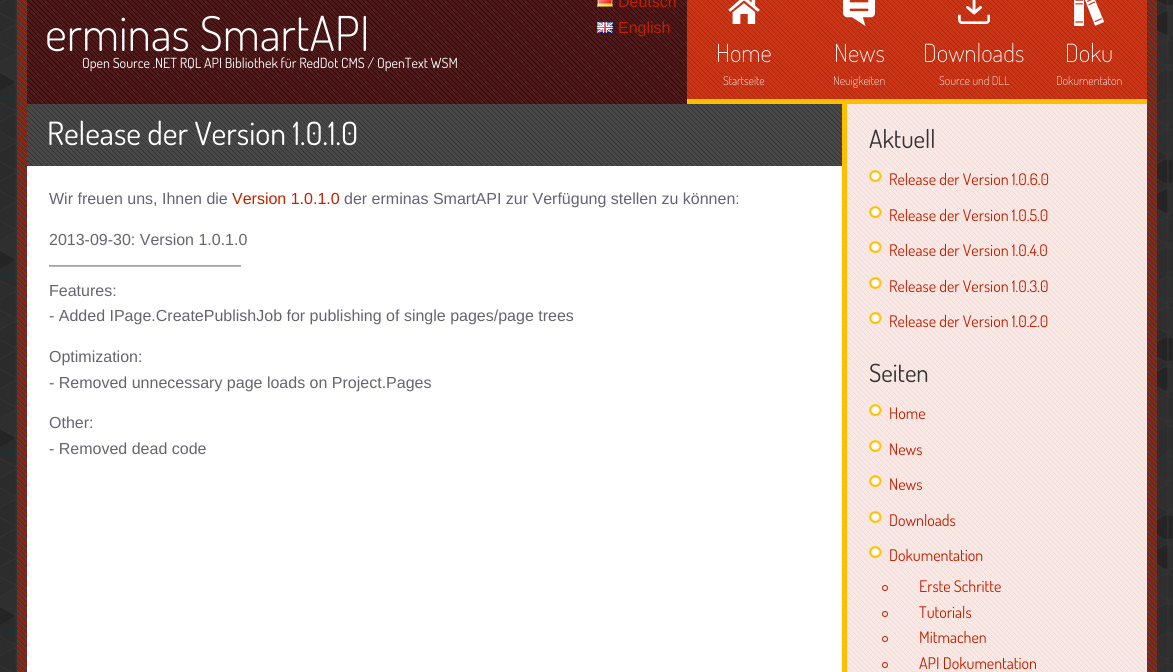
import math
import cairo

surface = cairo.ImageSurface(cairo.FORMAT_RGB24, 1173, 672)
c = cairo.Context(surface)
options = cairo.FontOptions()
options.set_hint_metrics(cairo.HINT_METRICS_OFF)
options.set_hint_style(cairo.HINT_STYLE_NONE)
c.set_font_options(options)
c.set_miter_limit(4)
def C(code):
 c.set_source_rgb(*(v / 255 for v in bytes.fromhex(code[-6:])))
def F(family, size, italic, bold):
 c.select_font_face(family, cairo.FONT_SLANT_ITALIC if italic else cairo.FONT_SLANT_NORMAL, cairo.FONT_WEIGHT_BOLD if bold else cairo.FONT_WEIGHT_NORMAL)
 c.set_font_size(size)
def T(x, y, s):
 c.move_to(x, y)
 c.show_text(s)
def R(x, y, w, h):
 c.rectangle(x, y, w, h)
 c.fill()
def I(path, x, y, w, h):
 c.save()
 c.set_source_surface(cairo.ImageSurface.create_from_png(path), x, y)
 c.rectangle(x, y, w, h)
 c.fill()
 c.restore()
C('ffffff')
c.paint()
I('1.png',0,0,1173,672)
C('c02000')
R(17,0,1140,672)
I('2.png',17,0,1140,672)
C('380000')
R(27,0,660,104)
I('3.png',27,0,660,104)
F('Dosis Light',48,0,0)
C('ffffff')
T(45,51,'erminas SmartAPI')
F('Dosis',14,0,0)
T(82,68,'Open Source .NET RQL API Bibliothek für RedDot CMS / OpenText WSM')
I('4.png',597,0,16,7)
F('Liberation Sans',16,0,0)
C('c02000')
T(618,7,'Deutsch')
I('5.png',597,22,16,11)
T(618,33,'English')
R(687,0,460,99)
I('6.png',687,0,115,99)
C('ffbf00')
R(687,99,460,5)
I('7.png',728,0,32,24)
F('Dosis ExtraLight',25,0,0)
C('ffffff')
T(716,62,'Home')
F('Dosis ExtraLight',12,0,0)
T(723,85,'Startseite')
I('6.png',802,0,115,99)
I('8.png',843,0,32,26)
F('Dosis ExtraLight',25,0,0)
T(834,62,'News')
F('Dosis ExtraLight',12,0,0)
T(833,85,'Neuigkeiten')
I('6.png',917,0,115,99)
I('9.png',958,0,32,24)
F('Dosis ExtraLight',25,0,0)
T(923,62,'Downloads')
F('Dosis ExtraLight',12,0,0)
T(939,85,'Source und DLL')
I('6.png',1032,0,115,99)
I('10.png',1074,0,30,26)
F('Dosis ExtraLight',25,0,0)
T(1065,62,'Doku')
F('Dosis ExtraLight',12,0,0)
T(1056,85,'Dokumentaton')
R(27,166,815,506)
C('333333')
R(27,104,815,62)
I('11.png',27,104,815,62)
F('Dosis',32,0,0)
C('ffffff')
T(47,145,'Release der Version 1.0.1.0')
F('Liberation Sans',16,0,0)
C('646472')
T(49,204,'Wir freuen uns, Ihnen die')
C('c02000')
T(232,204,'Version 1.0.1.0')
C('646472')
T(344,204,'der erminas SmartAPI zur Verfügung stellen zu können:')
T(49,245,'2013-09-30: Version 1.0.1.0')
T(49,270,'————————————')
T(49,296,'Features:')
T(49,321,'- Added IPage.CreatePublishJob for publishing of single pages/page trees')
T(49,362,'Optimization:')
T(49,388,'- Removed unnecessary page loads on Project.Pages')
T(49,428,'Other:')
T(49,454,'- Removed dead code')
C('f3d3cc')
R(847,104,300,568)
I('12.png',847,104,300,568)
C('ffbf00')
R(842,104,5,568)
F('Dosis',25,0,0)
C('333333')
T(869,148,'Aktuell')
I('13.png',869,170,13,12)
F('Dosis',16,0,0)
C('c02000')
T(889,185,'Release der Version 1.0.6.0')
I('14.png',869,206,13,12)
T(889,221,'Release der Version 1.0.5.0')
I('14.png',869,241,13,12)
T(889,256,'Release der Version 1.0.4.0')
I('15.png',869,277,13,12)
T(889,292,'Release der Version 1.0.3.0')
I('15.png',869,312,13,12)
T(889,327,'Release der Version 1.0.2.0')
F('Dosis',25,0,0)
C('333333')
T(869,382,'Seiten')
I('16.png',869,404,13,12)
F('Dosis',16,0,0)
C('c02000')
T(889,419,'Home')
I('13.png',869,440,13,12)
T(889,455,'News')
I('13.png',869,475,13,12)
T(889,490,'News')
I('14.png',869,511,13,12)
T(889,526,'Downloads')
I('14.png',869,546,13,12)
T(889,561,'Dokumentation')
c.new_path()
c.arc(885,588,2.5,0,2 * math.pi)
c.set_line_width(1)
c.stroke()
T(919,592,'Erste Schritte')
c.new_path()
c.arc(885,614,2.5,0,2 * math.pi)
c.stroke()
T(919,618,'Tutorials')
c.new_path()
c.arc(885,639,2.5,0,2 * math.pi)
c.stroke()
T(919,643,'Mitmachen')
c.new_path()
c.arc(885,665,2.5,0,2 * math.pi)
c.stroke()
T(919,669,'API Dokumentation')
surface.write_to_png('o.png')
